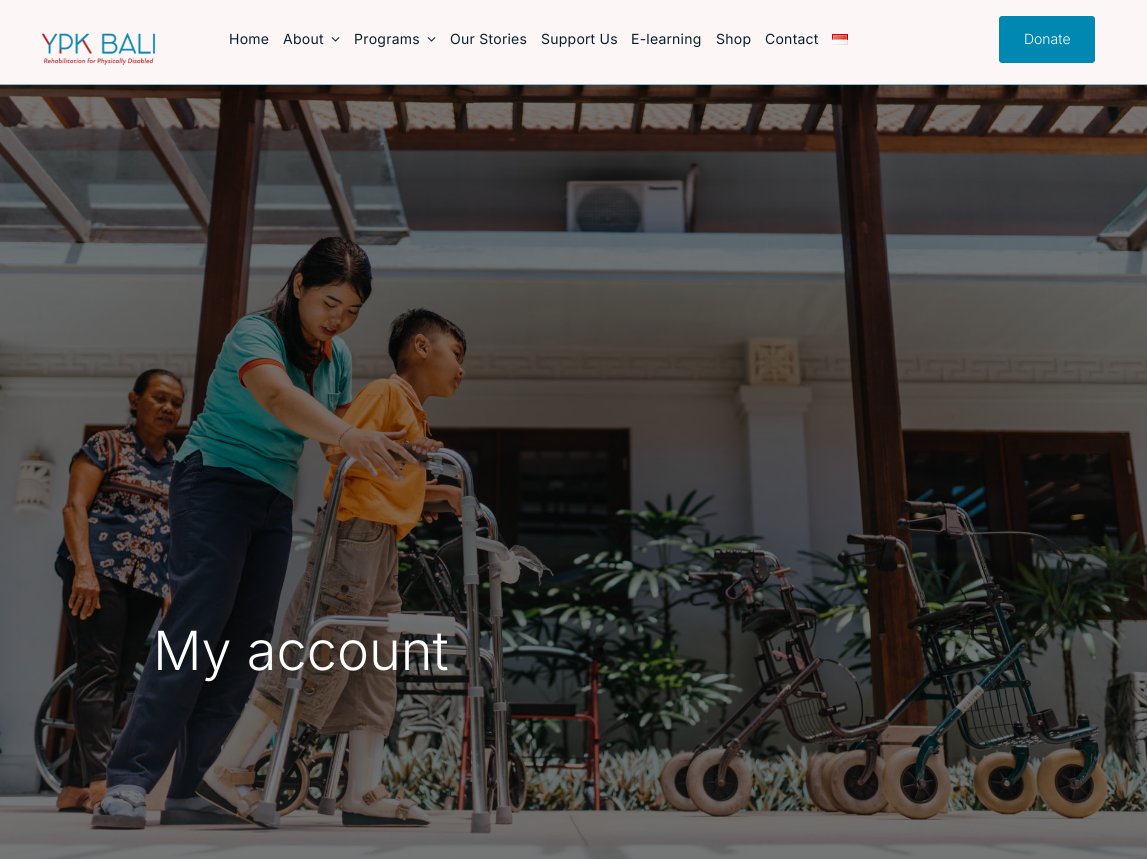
import math
import cairo

surface = cairo.ImageSurface(cairo.FORMAT_RGB24, 1147, 860)
c = cairo.Context(surface)
options = cairo.FontOptions()
options.set_hint_metrics(cairo.HINT_METRICS_OFF)
options.set_hint_style(cairo.HINT_STYLE_NONE)
c.set_font_options(options)
c.set_miter_limit(4)
def C(code):
 c.set_source_rgb(*(v / 255 for v in bytes.fromhex(code[-6:])))
def F(family, size, italic, bold):
 c.select_font_face(family, cairo.FONT_SLANT_ITALIC if italic else cairo.FONT_SLANT_NORMAL, cairo.FONT_WEIGHT_BOLD if bold else cairo.FONT_WEIGHT_NORMAL)
 c.set_font_size(size)
def T(x, y, s):
 c.move_to(x, y)
 c.show_text(s)
def L(x, y, s, letter, word):
 c.move_to(x, y)
 for ch in s:
  c.show_text(ch)
  c.rel_move_to(letter + word * (ch == ' '), 0)
def R(x, y, w, h):
 c.rectangle(x, y, w, h)
 c.fill()
def Q(x, y, w, h, r):
 c.new_sub_path()
 for i, (u, v) in enumerate([(x + w - r, y + h - r), (x + r, y + h - r), (x + r, y + r), (x + w - r, y + r)]):
  c.arc(u, v, r, i * math.pi / 2, (i + 1) * math.pi / 2)
 c.close_path()
def I(path, x, y, w, h):
 c.save()
 c.set_source_surface(cairo.ImageSurface.create_from_png(path), x, y)
 c.rectangle(x, y, w, h)
 c.fill()
 c.restore()
C('ffffff')
c.paint()
C('fcf7f6')
R(0,0,1147,84)
C('7ebfd4')
R(0,84,1147,1)
I('1.png',41,33,115,32)
F('Inter',14,0,0)
C('09202c')
L(229,44,'Home',.25,0)
L(283,44,'About',.25,0)
I('2.png',331,37,9,5)
L(354,44,'Programs',.25,0)
I('2.png',427,37,9,5)
L(450,44,'Our Stories',.25,0)
L(541,44,'Support Us',.25,0)
L(631,44,'E-learning',.25,0)
L(716,44,'Shop',.25,0)
L(765,44,'Contact',.25,0)
I('3.png',832,34,16,11)
C('0087b2')
Q(998.5,15.5,97,48,3.5)
c.fill_preserve()
C('ffffff')
c.set_line_width(1)
c.stroke()
F('Inter Light',14,0,0)
T(1024,44,'Donate')
I('4.png',0,85,1147,774)
F('Inter Light',54,0,0)
T(153,670,'My account')
surface.write_to_png('o.png')
